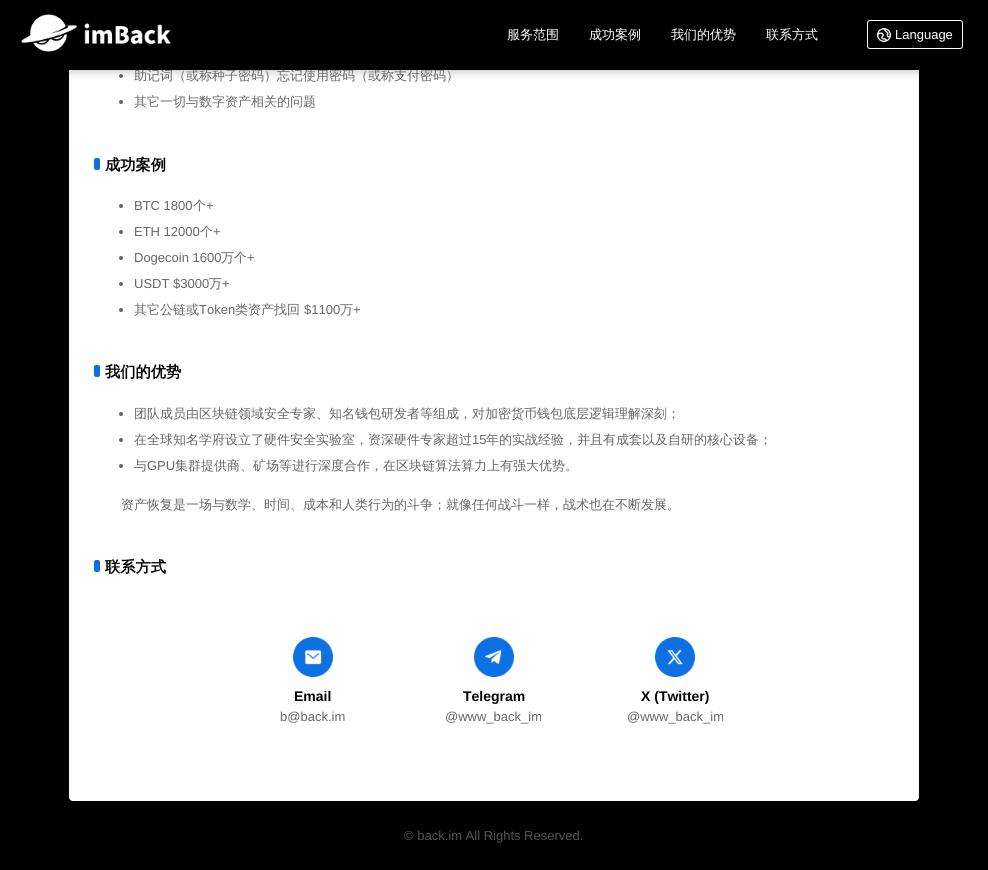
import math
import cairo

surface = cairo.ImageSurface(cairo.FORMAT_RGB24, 988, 870)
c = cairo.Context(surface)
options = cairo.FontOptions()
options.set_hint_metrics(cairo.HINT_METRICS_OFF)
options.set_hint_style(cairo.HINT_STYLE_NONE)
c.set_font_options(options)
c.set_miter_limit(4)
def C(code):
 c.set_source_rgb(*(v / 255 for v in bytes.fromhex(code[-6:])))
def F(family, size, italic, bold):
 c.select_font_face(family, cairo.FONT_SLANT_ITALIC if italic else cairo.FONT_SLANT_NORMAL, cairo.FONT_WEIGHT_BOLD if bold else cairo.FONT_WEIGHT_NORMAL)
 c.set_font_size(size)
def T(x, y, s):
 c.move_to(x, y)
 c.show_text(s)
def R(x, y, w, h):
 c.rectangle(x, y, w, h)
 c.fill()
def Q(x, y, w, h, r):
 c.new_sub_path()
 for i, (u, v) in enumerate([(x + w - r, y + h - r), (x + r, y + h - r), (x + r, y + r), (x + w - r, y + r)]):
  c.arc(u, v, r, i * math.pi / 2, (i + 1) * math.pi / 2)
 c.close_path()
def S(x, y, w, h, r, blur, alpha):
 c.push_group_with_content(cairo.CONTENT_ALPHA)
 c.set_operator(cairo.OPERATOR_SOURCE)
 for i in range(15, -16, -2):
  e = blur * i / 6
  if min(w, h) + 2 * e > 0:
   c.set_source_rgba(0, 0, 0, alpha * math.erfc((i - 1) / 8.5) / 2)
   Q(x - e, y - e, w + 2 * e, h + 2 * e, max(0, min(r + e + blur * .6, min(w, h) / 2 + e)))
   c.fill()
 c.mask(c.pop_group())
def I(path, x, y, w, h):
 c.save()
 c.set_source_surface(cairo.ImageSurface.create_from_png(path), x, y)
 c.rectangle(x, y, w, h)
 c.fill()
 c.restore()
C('000000')
c.paint()
C('ffffff')
Q(69,-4,850,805,4)
c.fill()
C('666666')
c.arc(121,76,2,0,2 * math.pi)
c.fill()
C('000000')
S(0,0,988,70,0,5,.3)
F('WenQuanYi Zen Hei Medium',13,0,0)
C('666666')
T(134,80,'助记词（或称种子密码）忘记使用密码（或称支付密码）')
C('000000')
R(69,0,850,70)
I('1.png',21,14,150,38)
C('ffffff')
T(507,39,'服务范围')
T(589,39,'成功案例')
T(671,39,'我们的优势')
T(766,39,'联系方式')
Q(867.5,20.5,95,28,2.5)
c.set_line_width(1)
c.stroke()
I('2.png',876,27,16,16)
F('Liberation Sans',13,0,0)
T(895,39,'Language')
C('666666')
c.new_path()
c.arc(121,102,2,0,2 * math.pi)
c.fill()
F('WenQuanYi Zen Hei Medium',13,0,0)
T(134,106,'其它一切与数字资产相关的问题')
C('0b70e2')
Q(94,158,6,12,2)
c.fill()
F('WenQuanYi Zen Hei',15.25,0,1)
C('000000')
T(105,170,'成功案例')
C('666666')
c.new_path()
c.arc(121,206,2,0,2 * math.pi)
c.fill()
F('Liberation Sans',13,0,0)
T(134,210,'BTC 1800')
F('WenQuanYi Zen Hei Medium',13,0,0)
T(193,210,'个')
F('Liberation Sans',13,0,0)
T(206,210,'+')
c.new_path()
c.arc(121,232,2,0,2 * math.pi)
c.fill()
T(134,236,'ETH 12000')
F('WenQuanYi Zen Hei Medium',13,0,0)
T(200,236,'个')
F('Liberation Sans',13,0,0)
T(213,236,'+')
c.new_path()
c.arc(121,258,2,0,2 * math.pi)
c.fill()
T(134,262,'Dogecoin 1600')
F('WenQuanYi Zen Hei Medium',13,0,0)
T(221,262,'万个')
F('Liberation Sans',13,0,0)
T(247,262,'+')
c.new_path()
c.arc(121,284,2,0,2 * math.pi)
c.fill()
T(134,288,'USDT $3000')
F('WenQuanYi Zen Hei Medium',13,0,0)
T(209,288,'万')
F('Liberation Sans',13,0,0)
T(222,288,'+')
c.new_path()
c.arc(121,310,2,0,2 * math.pi)
c.fill()
F('WenQuanYi Zen Hei Medium',13,0,0)
T(134,314,'其它公链或')
F('Liberation Sans',13,0,0)
T(199,314,'Token')
F('WenQuanYi Zen Hei Medium',13,0,0)
T(235,314,'类资产找回')
F('Liberation Sans',13,0,0)
T(304,314,'$1100')
F('WenQuanYi Zen Hei Medium',13,0,0)
T(340,314,'万')
F('Liberation Sans',13,0,0)
T(353,314,'+')
C('0b70e2')
Q(94,365,6,12,2)
c.fill()
F('WenQuanYi Zen Hei',15.25,0,1)
C('000000')
T(105,377,'我们的优势')
C('666666')
c.new_path()
c.arc(121,414,2,0,2 * math.pi)
c.fill()
F('WenQuanYi Zen Hei Medium',13,0,0)
T(134,418,'团队成员由区块链领域安全专家、知名钱包研发者等组成，对加密货币钱包底层逻辑理解深刻；')
c.new_path()
c.arc(121,440,2,0,2 * math.pi)
c.fill()
T(134,444,'在全球知名学府设立了硬件安全实验室，资深硬件专家超过')
F('Liberation Sans',13,0,0)
T(472,444,'15')
F('WenQuanYi Zen Hei Medium',13,0,0)
T(486,444,'年的实战经验，并且有成套以及自研的核心设备；')
c.new_path()
c.arc(121,466,2,0,2 * math.pi)
c.fill()
T(134,470,'与')
F('Liberation Sans',13,0,0)
T(147,470,'GPU')
F('WenQuanYi Zen Hei Medium',13,0,0)
T(175,470,'集群提供商、矿场等进行深度合作，在区块链算法算力上有强大优势。')
T(121,509,'资产恢复是一场与数学、时间、成本和人类行为的斗争；就像任何战斗一样，战术也在不断发展。')
C('0b70e2')
Q(94,560,6,12,2)
c.fill()
F('WenQuanYi Zen Hei',15.25,0,1)
C('000000')
T(105,572,'联系方式')
I('3.png',293,637,40,40)
F('Liberation Sans',14,0,1)
T(294,701,'Email')
F('Liberation Sans',13,0,0)
C('666666')
T(280,721,'b@back.im')
I('4.png',474,637,40,40)
F('Liberation Sans',14,0,1)
C('000000')
T(463,701,'Telegram')
F('Liberation Sans',13,0,0)
C('666666')
T(445,721,'@www_back_im')
I('5.png',655,637,40,40)
F('Liberation Sans',14,0,1)
C('000000')
T(641,701,'X (Twitter)')
F('Liberation Sans',13,0,0)
C('666666')
T(627,721,'@www_back_im')
C('555555')
T(404,840,'© back.im All Rights Reserved.')
surface.write_to_png('o.png')
